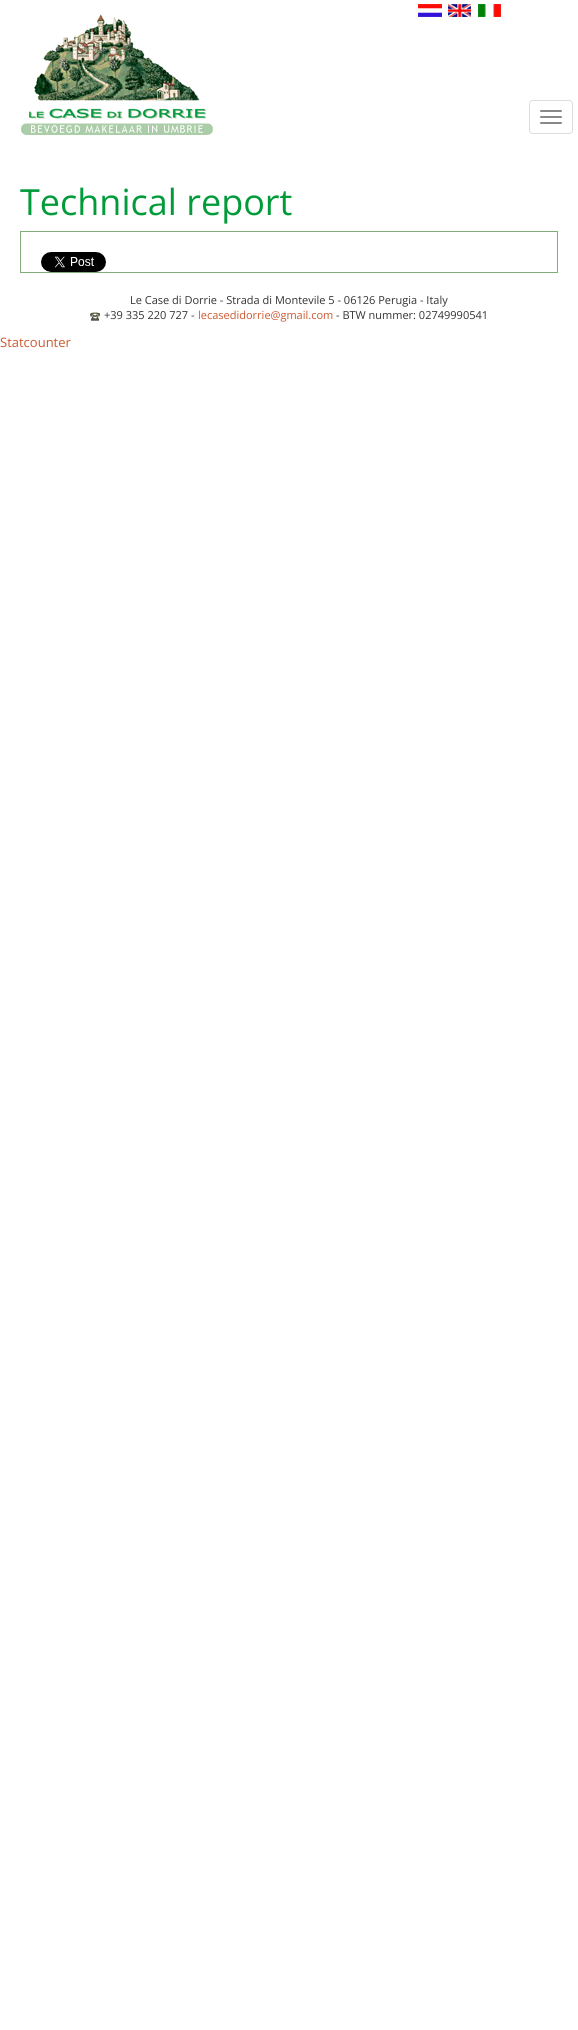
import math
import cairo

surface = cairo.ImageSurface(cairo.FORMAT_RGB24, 578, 2030)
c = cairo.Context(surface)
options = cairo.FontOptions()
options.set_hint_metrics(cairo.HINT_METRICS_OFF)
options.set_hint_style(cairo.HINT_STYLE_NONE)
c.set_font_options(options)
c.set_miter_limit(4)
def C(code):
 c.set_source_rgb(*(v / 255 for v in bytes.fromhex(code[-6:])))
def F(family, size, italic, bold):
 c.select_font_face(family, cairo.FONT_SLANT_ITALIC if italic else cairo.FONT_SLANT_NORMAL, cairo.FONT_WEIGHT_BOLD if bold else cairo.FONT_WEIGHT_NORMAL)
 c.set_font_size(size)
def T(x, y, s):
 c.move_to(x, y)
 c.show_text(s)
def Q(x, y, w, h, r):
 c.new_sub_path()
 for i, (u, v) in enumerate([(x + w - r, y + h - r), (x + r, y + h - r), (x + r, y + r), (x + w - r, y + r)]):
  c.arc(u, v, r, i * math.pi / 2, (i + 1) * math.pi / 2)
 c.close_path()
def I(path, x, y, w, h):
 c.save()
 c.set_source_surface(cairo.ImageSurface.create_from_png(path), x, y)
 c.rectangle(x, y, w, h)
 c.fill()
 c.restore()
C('ffffff')
c.paint()
I('1.png',418,4,24,13)
I('2.png',448,4,23,13)
I('3.png',478,4,23,13)
I('4.png',21,13,192,124)
Q(529.5,100.5,43,33,3.5)
C('dddddd')
c.set_line_width(1)
c.stroke()
C('888888')
Q(540,110,22,2,1)
c.fill()
Q(540,116,22,2,1)
c.fill()
Q(540,122,22,2,1)
c.fill()
F('Open Sans',36,0,0)
C('019b3a')
T(20,215,'Technical report')
c.rectangle(20.5,231.5,537,41)
C('81ac79')
c.stroke()
I('5.png',41,252,65,20)
F('Open Sans',11,0,0)
C('333333')
T(130,304,'Le Case di Dorrie - Strada di Montevile 5 - 06126 Perugia - Italy')
I('6.png',90,312,10,9)
T(104,319,'+39 335 220 727 -')
C('cc5830')
T(198,319,'lecasedidorrie@gmail.com')
C('333333')
T(336,319,'- BTW nummer: 02749990541')
F('Open Sans',13,0,0)
C('cc5830')
T(0,347,'Statcounter')
surface.write_to_png('o.png')
